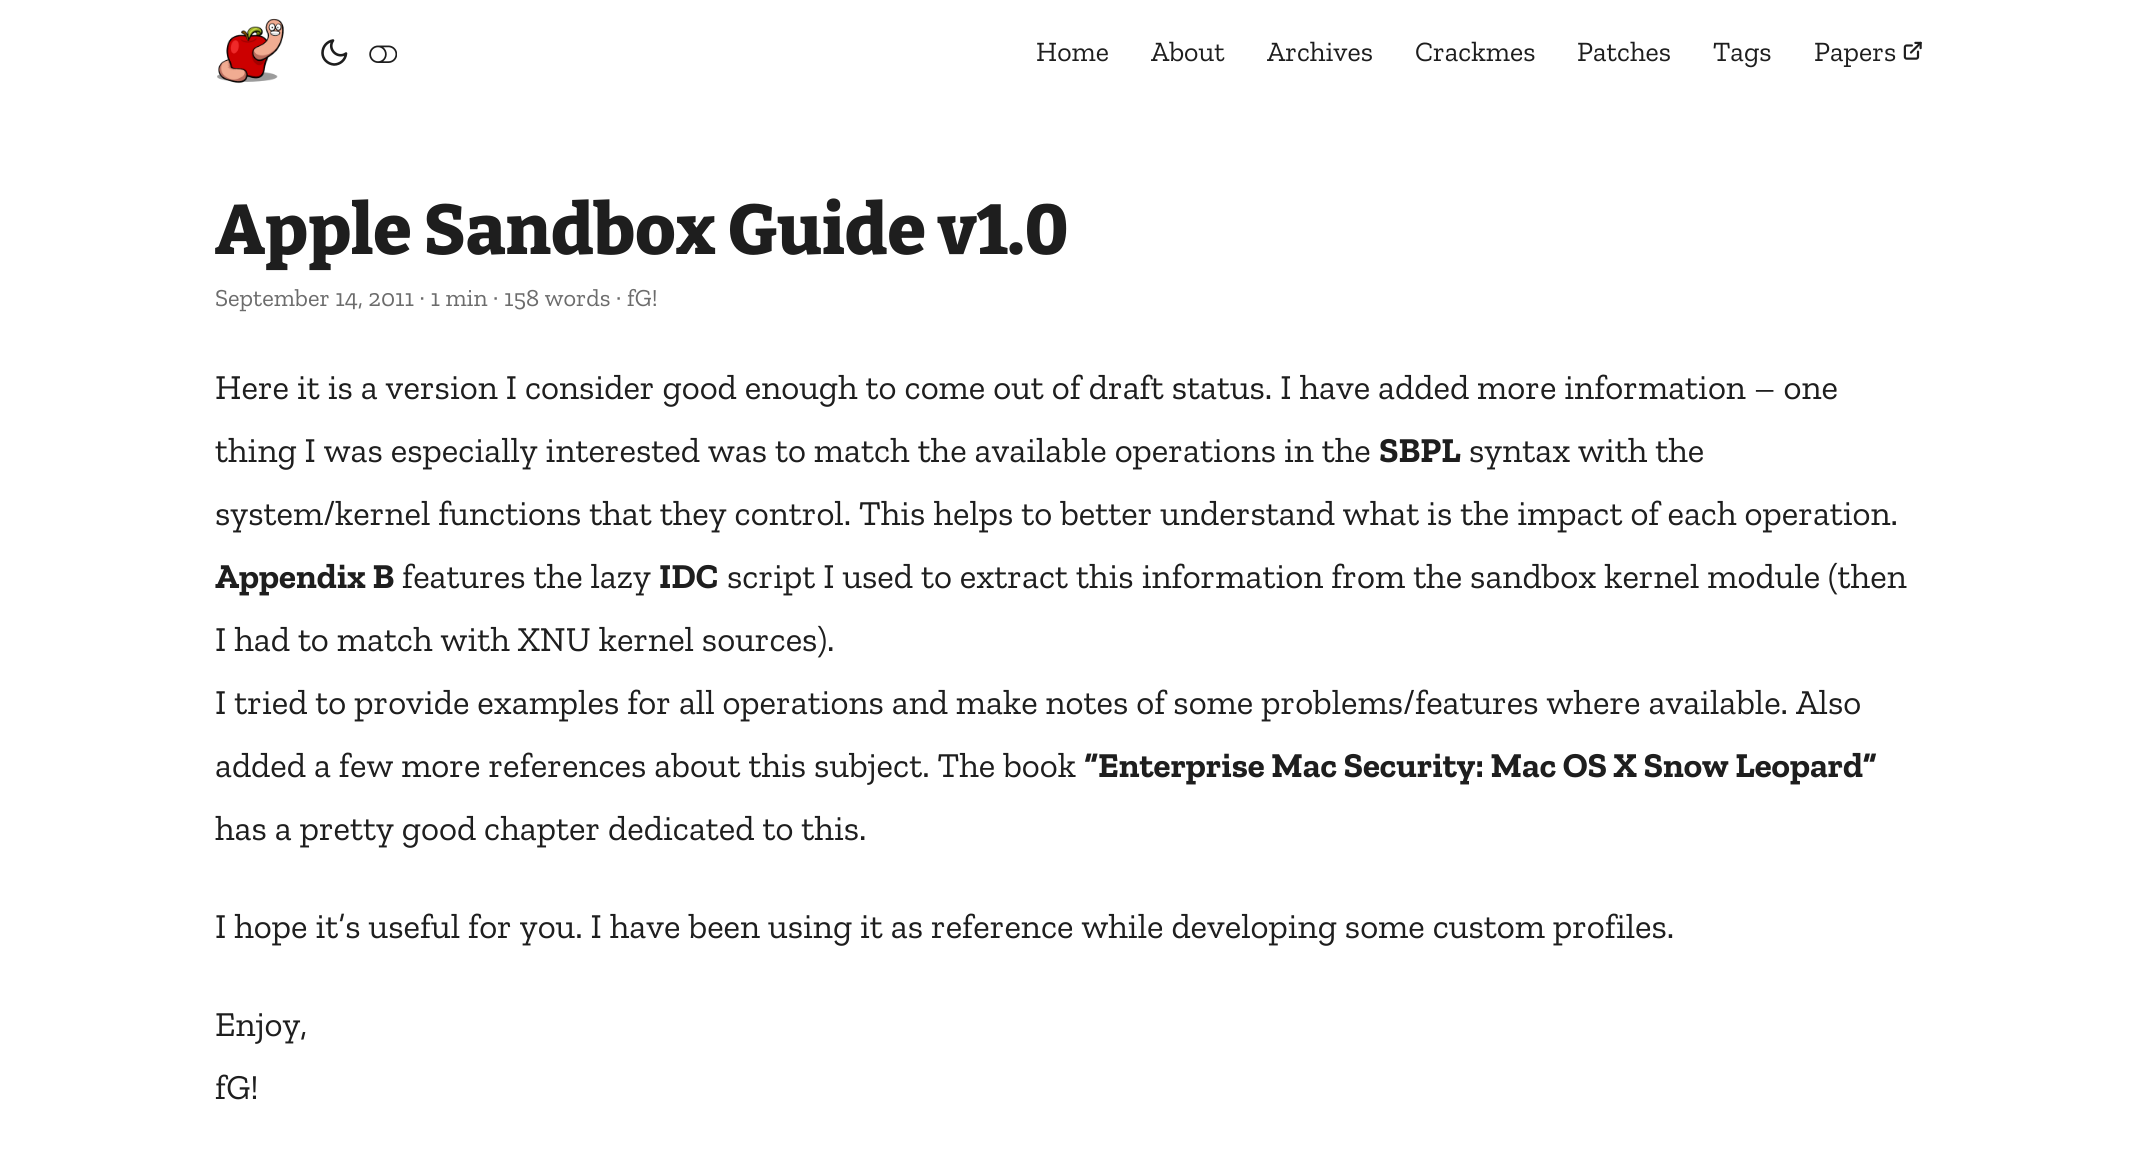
import math
import cairo

surface = cairo.ImageSurface(cairo.FORMAT_RGB24, 2137, 1153)
c = cairo.Context(surface)
options = cairo.FontOptions()
options.set_hint_metrics(cairo.HINT_METRICS_OFF)
options.set_hint_style(cairo.HINT_STYLE_NONE)
c.set_font_options(options)
c.set_miter_limit(4)
def C(code):
 c.set_source_rgb(*(v / 255 for v in bytes.fromhex(code[-6:])))
def F(family, size, italic, bold):
 c.select_font_face(family, cairo.FONT_SLANT_ITALIC if italic else cairo.FONT_SLANT_NORMAL, cairo.FONT_WEIGHT_BOLD if bold else cairo.FONT_WEIGHT_NORMAL)
 c.set_font_size(size)
def T(x, y, s):
 c.move_to(x, y)
 c.show_text(s)
def I(path, x, y, w, h):
 c.save()
 c.set_source_surface(cairo.ImageSurface.create_from_png(path), x, y)
 c.rectangle(x, y, w, h)
 c.fill()
 c.restore()
C('ffffff')
c.paint()
I('1.png',217,18,67,66)
c.new_path()
c.move_to(346,53.5)
c.curve_to(345.5,60,340,64.5,334,64.5)
c.curve_to(327.5,64,322.5,59,322.5,53)
c.curve_to(322.5,46.5,327,41.5,333,40.5)
c.curve_to(327,49,337.5,59.5,346,53.5)
c.close_path()
C('1e1e1e')
c.set_line_width(2.6)
c.set_line_cap(cairo.LINE_CAP_ROUND)
c.set_line_join(cairo.LINE_JOIN_ROUND)
c.stroke()
I('2.png',369,45,28,18)
F('Zilla Slab',28,0,0)
T(1036,61,'Home')
T(1151,61,'About')
T(1267,61,'Archives')
T(1415,61,'Crackmes')
T(1577,61,'Patches')
T(1713,61,'Tags')
T(1814,61,'Papers')
I('3.png',1903,41,19,19)
F('Bitter Thin',70,0,0)
T(215,254,'Apple Sandbox Guide v1.0')
F('Zilla Slab',24.5,0,0)
C('6c6c6c')
T(215,306,'September 14, 2011 · 1 min · 158 words · fG!')
F('Zilla Slab',35,0,0)
C('1e1e1e')
T(215,399,'Here it is a version I consider good enough to come out of draft status. I have added more information – one')
T(215,462,'thing I was especially interested was to match the available operations in the')
F('Zilla Slab',35,0,1)
T(1379,462,'SBPL')
F('Zilla Slab',35,0,0)
T(1469,462,'syntax with the')
T(215,525,'system/kernel functions that they control. This helps to better understand what is the impact of each operation.')
F('Zilla Slab',35,0,1)
T(215,588,'Appendix B')
F('Zilla Slab',35,0,0)
T(402,588,'features the lazy')
F('Zilla Slab',35,0,1)
T(659,588,'IDC')
F('Zilla Slab',35,0,0)
T(727,588,'script I used to extract this information from the sandbox kernel module (then')
T(215,651,'I had to match with XNU kernel sources).')
T(215,714,'I tried to provide examples for all operations and make notes of some problems/features where available. Also')
T(215,777,'added a few more references about this subject. The book')
F('Zilla Slab',35,0,1)
T(1084,777,'“Enterprise Mac Security: Mac OS X Snow Leopard”')
F('Zilla Slab',35,0,0)
T(215,840,'has a pretty good chapter dedicated to this.')
T(215,938,'I hope it’s useful for you. I have been using it as reference while developing some custom profiles.')
T(215,1036,'Enjoy,')
T(215,1099,'fG!')
surface.write_to_png('o.png')
